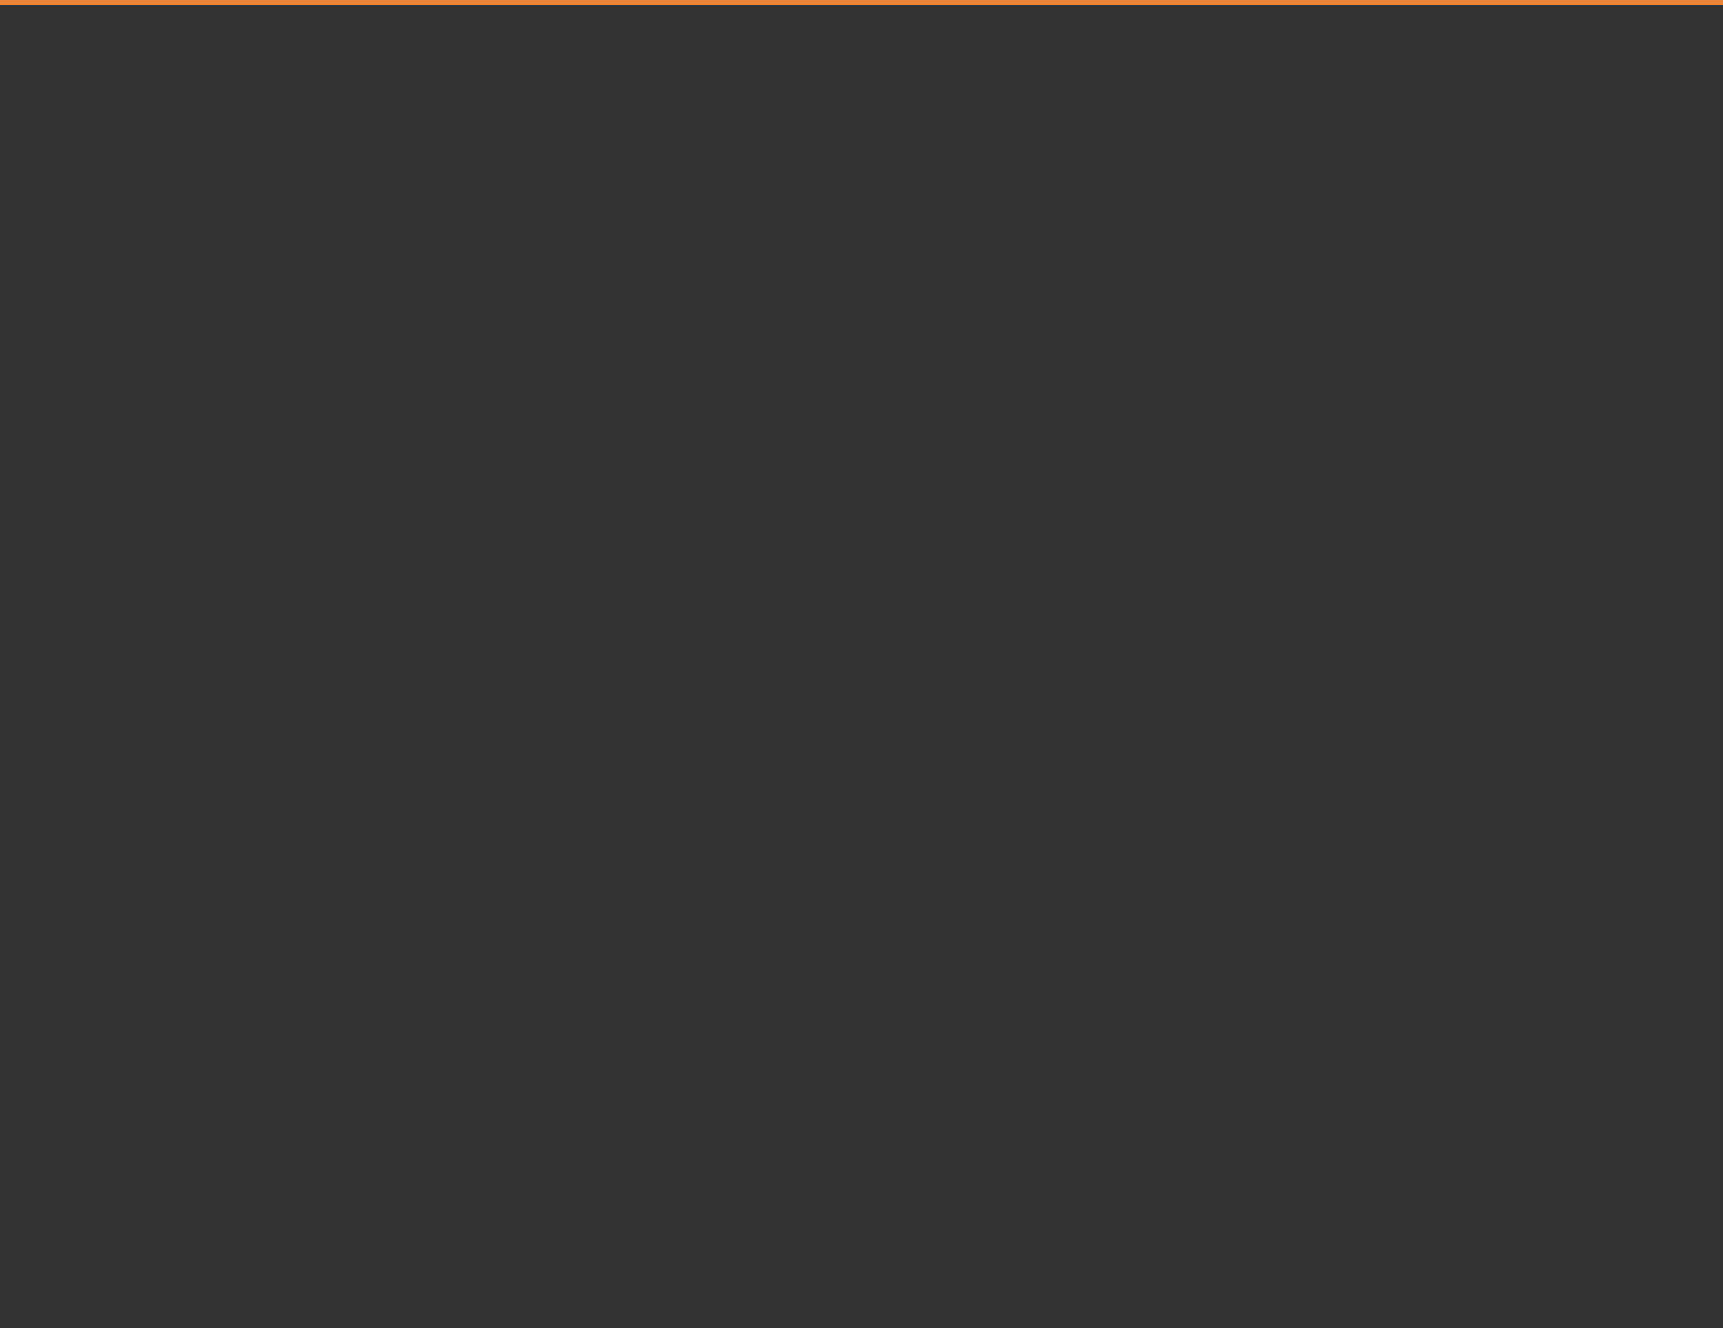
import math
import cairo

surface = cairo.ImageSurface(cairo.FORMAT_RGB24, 1723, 1328)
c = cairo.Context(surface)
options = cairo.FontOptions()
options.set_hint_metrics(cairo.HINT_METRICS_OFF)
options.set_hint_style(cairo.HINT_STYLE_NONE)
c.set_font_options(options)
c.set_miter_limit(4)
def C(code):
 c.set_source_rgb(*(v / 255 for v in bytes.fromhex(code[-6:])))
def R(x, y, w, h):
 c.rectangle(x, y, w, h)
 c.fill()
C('333333')
c.paint()
C('ea8538')
R(0,0,1723,5)
surface.write_to_png('o.png')
